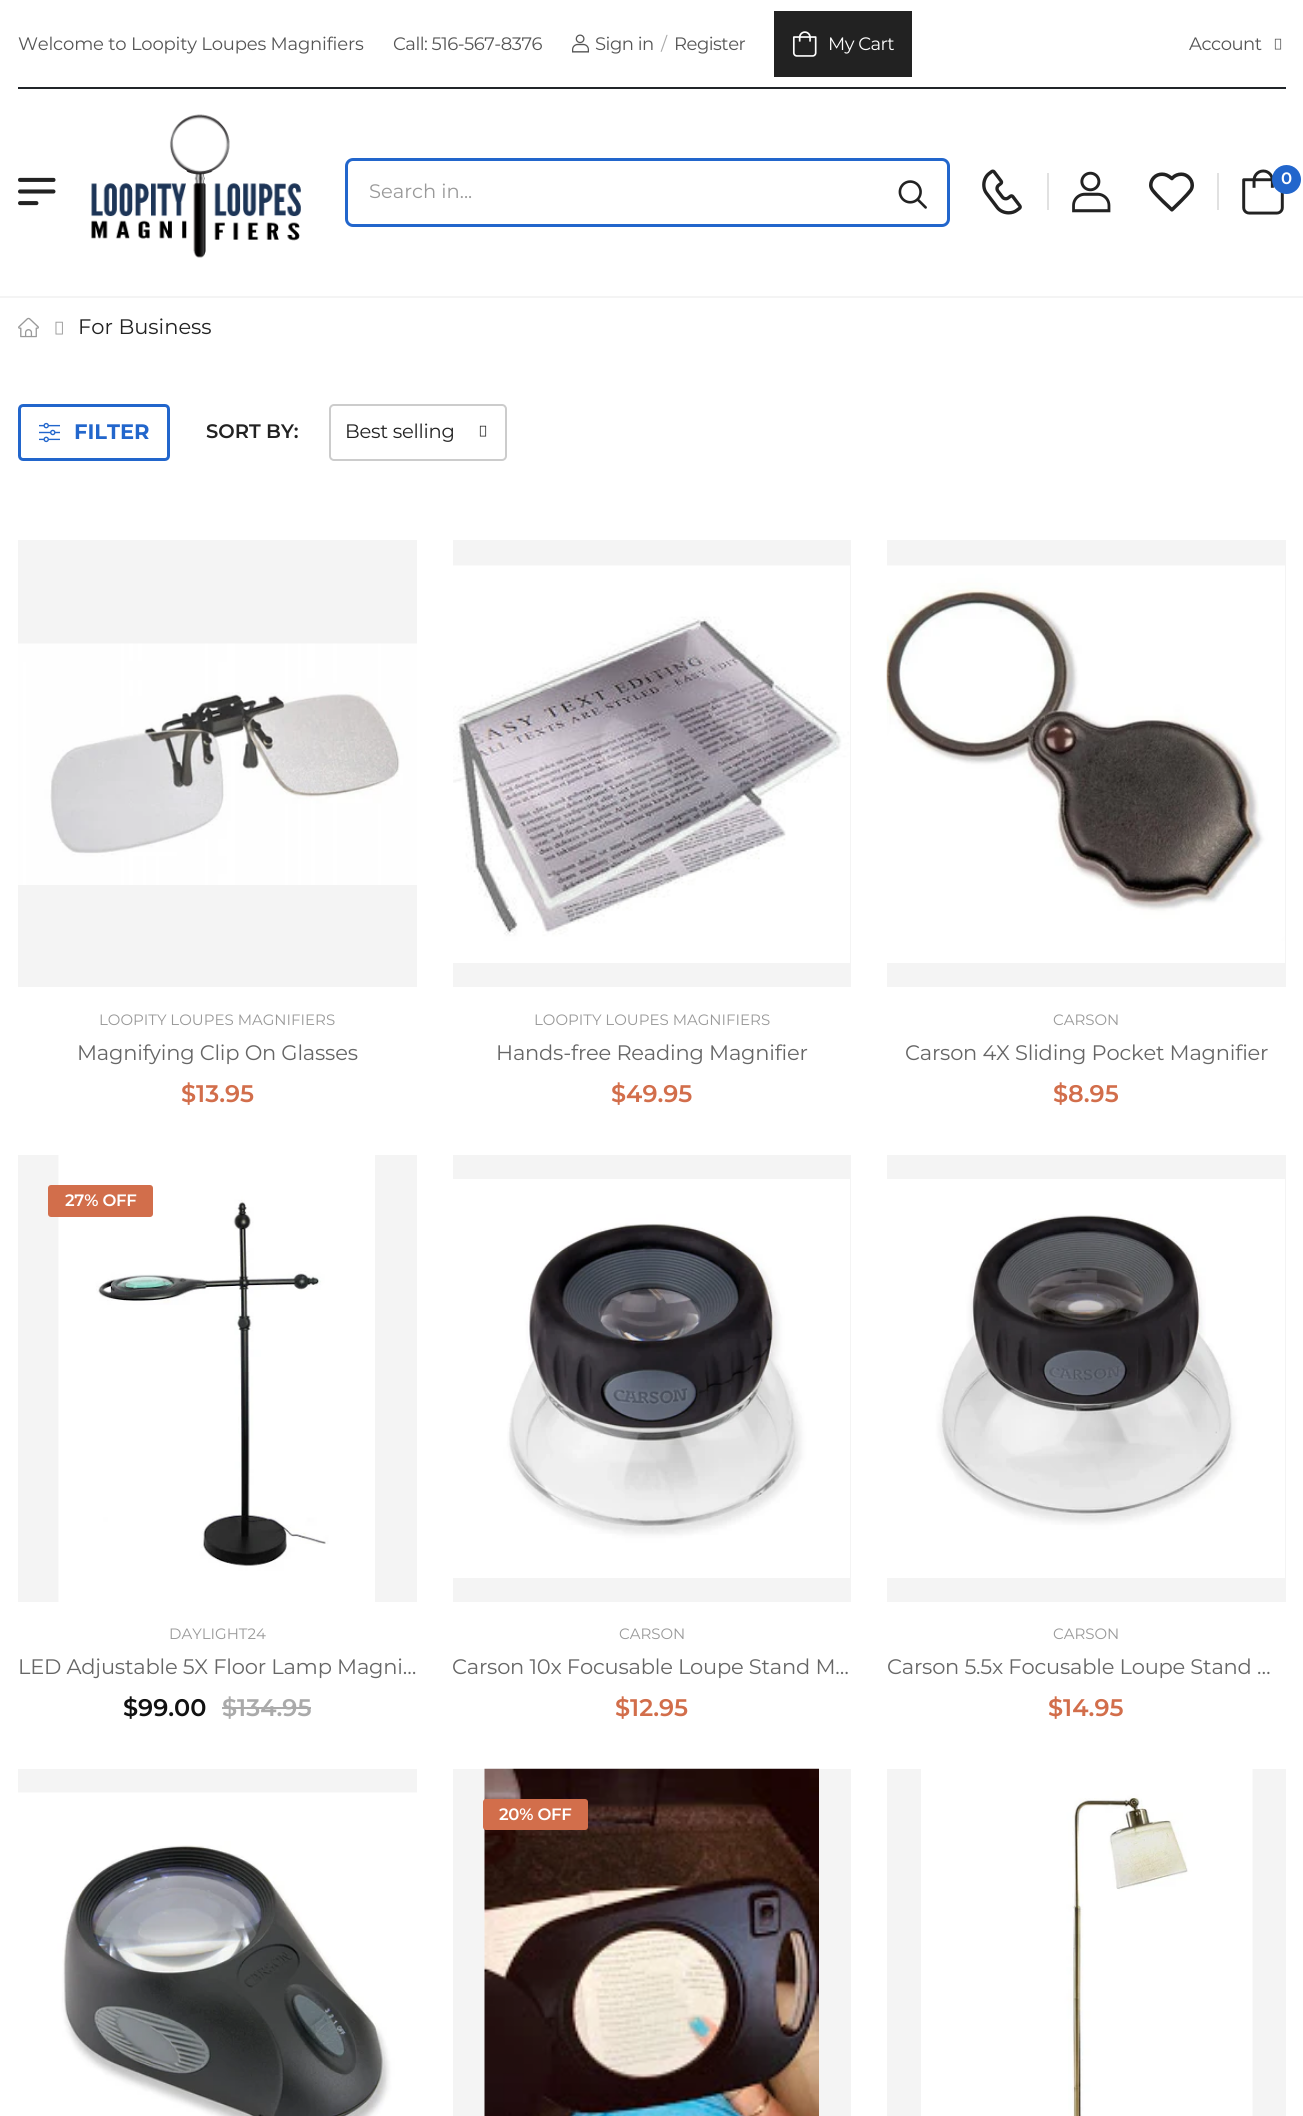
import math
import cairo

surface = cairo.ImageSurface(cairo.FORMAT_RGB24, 1303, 2116)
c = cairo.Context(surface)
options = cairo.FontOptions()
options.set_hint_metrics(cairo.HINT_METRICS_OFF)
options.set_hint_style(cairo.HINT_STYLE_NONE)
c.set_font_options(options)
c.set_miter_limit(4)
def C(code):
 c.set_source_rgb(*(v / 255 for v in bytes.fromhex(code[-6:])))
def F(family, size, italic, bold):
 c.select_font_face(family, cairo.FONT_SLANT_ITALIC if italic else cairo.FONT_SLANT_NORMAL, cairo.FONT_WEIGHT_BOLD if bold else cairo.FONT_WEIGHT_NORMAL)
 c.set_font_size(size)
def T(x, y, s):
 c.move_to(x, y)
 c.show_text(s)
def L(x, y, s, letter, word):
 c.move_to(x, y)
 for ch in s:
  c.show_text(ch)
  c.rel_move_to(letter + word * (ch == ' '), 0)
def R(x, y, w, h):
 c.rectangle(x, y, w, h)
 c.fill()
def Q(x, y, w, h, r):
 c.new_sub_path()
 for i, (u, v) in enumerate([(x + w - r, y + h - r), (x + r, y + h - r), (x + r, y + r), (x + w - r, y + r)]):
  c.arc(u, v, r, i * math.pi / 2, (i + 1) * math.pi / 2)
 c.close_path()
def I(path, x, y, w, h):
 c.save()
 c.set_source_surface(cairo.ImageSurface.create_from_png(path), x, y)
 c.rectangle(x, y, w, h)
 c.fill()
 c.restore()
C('ffffff')
c.paint()
F('Montserrat',18,0,0)
C('555555')
L(18,50,'Welcome to Loopity Loupes Magnifiers',-.2,0)
L(393,50,'Call: 516-567-8376',-.5,0)
I('1.png',572,34,17,19)
L(595,50,'Sign in',-.5,0)
C('aaaaaa')
L(661,50,'/',-.5,0)
C('555555')
L(674,50,'Register',-.5,0)
C('222222')
R(774,11,138,66)
I('2.png',792,31,25,26)
C('ffffff')
L(828,50,'My Cart',-.5,0)
C('555555')
L(1189,50,'Account',-.5,0)
I('3.png',1274,38,8,12)
C('212529')
R(18,87,1268,2)
I('4.png',982,169,40,46)
C('e1e1e1')
R(1047,173,2,37)
I('5.png',1072,171,39,42)
I('6.png',1149,172,45,40)
R(1217,173,2,37)
I('7.png',1242,169,42,46)
C('2266cc')
c.arc(1286.5,179.5,14.5,0,2 * math.pi)
c.fill()
F('Montserrat SemiBold',16.5,0,0)
C('ffffff')
L(1281,184,'0',-.5,0)
I('8.png',18,177,38,29)
I('9.png',91,114,210,144)
Q(346.5,159.5,602,66,6.5)
C('2266cc')
c.set_line_width(3)
c.stroke()
F('Montserrat',19.5,0,0)
C('999999')
T(369,198,'Search in...')
I('10.png',898,180,29,29)
C('f4f4f4')
R(0,296,1303,2)
I('11.png',18,317,21,21)
I('12.png',55,321,8,14)
F('Montserrat',21,0,0)
C('222222')
T(78,334,'For Business')
Q(19.5,405.5,149,54,3.5)
C('2266cc')
c.stroke()
I('13.png',39,422,21,21)
F('Montserrat',21,0,1)
T(74,439,'FILTER')
F('Montserrat SemiBold',19.5,0,0)
C('222222')
T(206,438,'SORT BY:')
Q(330,405,176,55,4)
C('cccccc')
c.set_line_width(2)
c.stroke()
F('Montserrat',19.5,0,0)
C('222222')
L(345,438,'Best selling',-.25,0)
I('14.png',479,425,8,12)
C('f4f4f4')
R(18,540,399,447)
I('15.png',18,643,399,242)
F('Montserrat',15,0,0)
C('999999')
T(99,1025,'LOOPITY LOUPES MAGNIFIERS')
F('Montserrat',21,0,0)
C('666666')
L(77,1060,'Magnifying Clip On Glasses',-.2,0)
F('Montserrat SemiBold',24,0,0)
C('d26e4b')
T(181,1102,'$13.95')
C('f4f4f4')
R(453,540,398,447)
I('16.png',453,565,397,398)
F('Montserrat',15,0,0)
C('999999')
T(534,1025,'LOOPITY LOUPES MAGNIFIERS')
F('Montserrat',21,0,0)
C('666666')
L(496,1060,'Hands-free Reading Magnifier',-.2,0)
F('Montserrat SemiBold',24,0,0)
C('d26e4b')
T(611,1102,'$49.95')
C('f4f4f4')
R(887,540,399,447)
I('17.png',886,565,399,398)
F('Montserrat',15,0,0)
C('999999')
T(1053,1025,'CARSON')
F('Montserrat',21,0,0)
C('666666')
L(905,1060,'Carson 4X Sliding Pocket Magnifier',-.2,0)
F('Montserrat SemiBold',24,0,0)
C('d26e4b')
T(1053,1102,'$8.95')
C('f4f4f4')
R(18,1155,399,447)
I('18.png',58,1155,317,447)
C('d26e4b')
Q(48,1185,105,32,3)
c.fill()
F('Montserrat SemiBold',16.5,0,0)
C('ffffff')
L(65,1206,'27% OFF',-.25,0)
F('Montserrat',15,0,0)
C('999999')
T(169,1639,'DAYLIGHT24')
F('Montserrat',21,0,0)
C('666666')
L(18,1674,'LED Adjustable 5X Floor Lamp Magni…',-.2,0)
F('Montserrat SemiBold',24,0,0)
C('111111')
T(123,1716,'$99.00')
C('aaaaaa')
T(222,1716,'$134.95')
R(222,1707,89,2)
C('f4f4f4')
R(453,1155,398,447)
I('19.png',453,1179,397,399)
F('Montserrat',15,0,0)
C('999999')
T(619,1639,'CARSON')
F('Montserrat',21,0,0)
C('666666')
L(452,1674,'Carson 10x Focusable Loupe Stand M…',-.2,0)
F('Montserrat SemiBold',24,0,0)
C('d26e4b')
T(615,1716,'$12.95')
C('f4f4f4')
R(887,1155,399,447)
I('20.png',887,1179,398,399)
F('Montserrat',15,0,0)
C('999999')
T(1053,1639,'CARSON')
F('Montserrat',21,0,0)
C('666666')
L(887,1674,'Carson 5.5x Focusable Loupe Stand …',-.2,0)
F('Montserrat SemiBold',24,0,0)
C('d26e4b')
T(1048,1716,'$14.95')
C('f4f4f4')
R(18,1769,399,24)
I('21.png',18,1792,399,324)
R(453,1769,398,347)
I('22.png',484,1768,335,348)
C('d26e4b')
Q(483,1799,105,31,3)
c.fill()
F('Montserrat SemiBold',16.5,0,0)
C('ffffff')
L(499,1820,'20% OFF',-.25,0)
C('f4f4f4')
R(887,1769,399,347)
I('23.png',921,1769,332,347)
surface.write_to_png('o.png')
